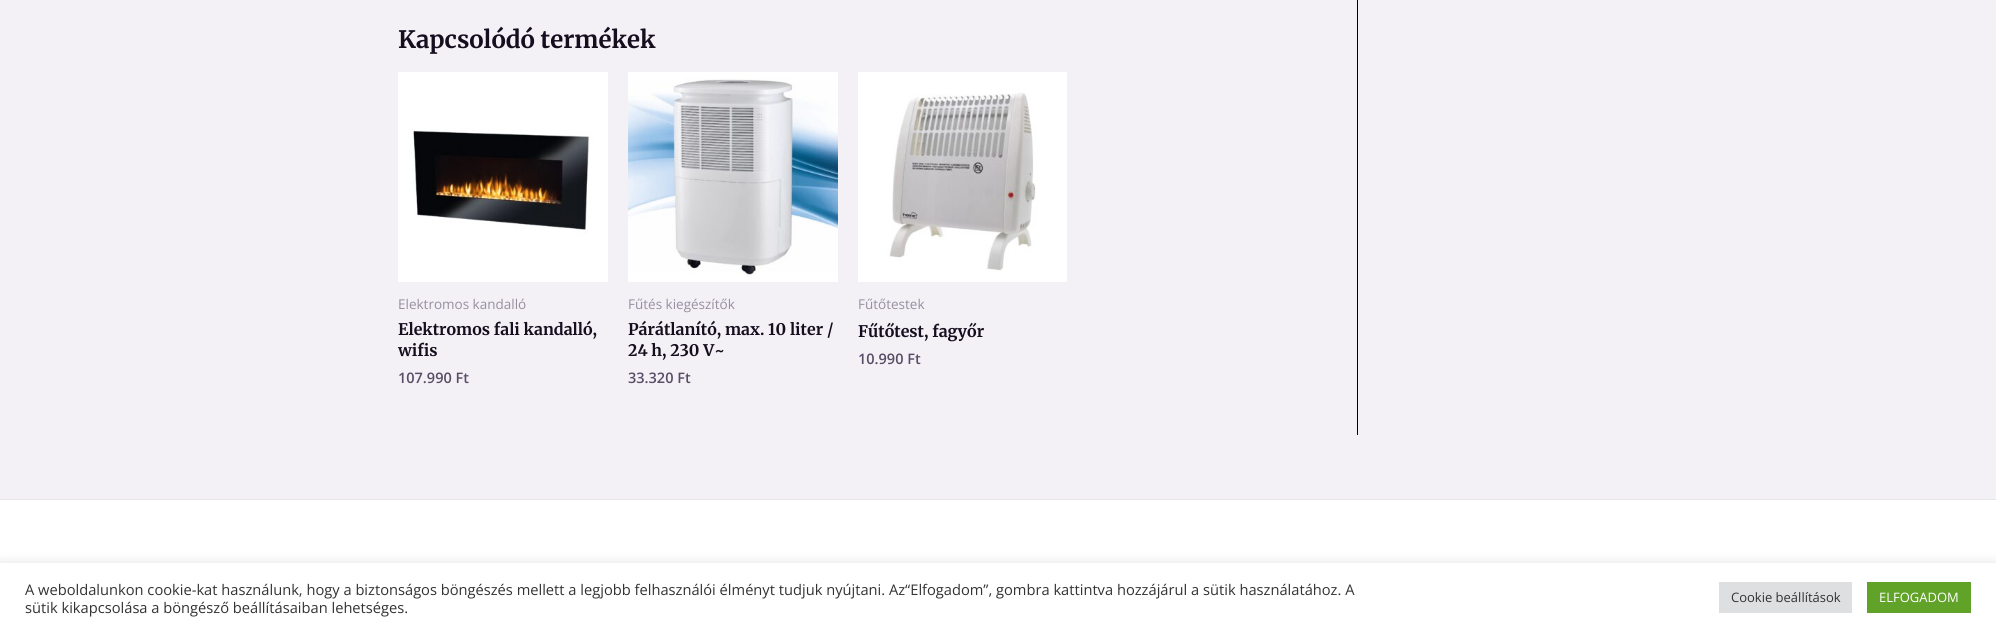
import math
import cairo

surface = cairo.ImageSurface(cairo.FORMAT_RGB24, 1996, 632)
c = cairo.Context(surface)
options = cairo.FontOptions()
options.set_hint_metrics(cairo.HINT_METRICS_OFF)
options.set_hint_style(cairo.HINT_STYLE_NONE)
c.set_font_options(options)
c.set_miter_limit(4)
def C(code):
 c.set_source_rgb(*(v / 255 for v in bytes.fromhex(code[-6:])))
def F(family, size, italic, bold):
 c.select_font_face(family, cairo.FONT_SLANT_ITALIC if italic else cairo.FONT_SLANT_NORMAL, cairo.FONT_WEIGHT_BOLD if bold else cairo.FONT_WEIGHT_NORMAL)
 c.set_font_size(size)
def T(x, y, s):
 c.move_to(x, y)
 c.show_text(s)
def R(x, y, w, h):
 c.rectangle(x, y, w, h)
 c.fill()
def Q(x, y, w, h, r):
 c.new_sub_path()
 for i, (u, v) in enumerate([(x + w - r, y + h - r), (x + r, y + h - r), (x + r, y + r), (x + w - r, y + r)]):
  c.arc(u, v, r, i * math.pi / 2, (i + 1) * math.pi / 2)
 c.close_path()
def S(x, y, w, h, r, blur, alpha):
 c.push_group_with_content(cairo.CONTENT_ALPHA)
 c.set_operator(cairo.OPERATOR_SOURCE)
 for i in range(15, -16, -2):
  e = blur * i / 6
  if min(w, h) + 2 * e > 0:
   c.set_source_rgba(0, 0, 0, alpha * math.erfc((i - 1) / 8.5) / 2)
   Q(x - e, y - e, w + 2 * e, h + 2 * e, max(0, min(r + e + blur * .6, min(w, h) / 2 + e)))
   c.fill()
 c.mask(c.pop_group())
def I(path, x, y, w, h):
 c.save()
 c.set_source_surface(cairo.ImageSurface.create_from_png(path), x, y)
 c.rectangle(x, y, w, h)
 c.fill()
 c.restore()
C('f3f1f6')
c.paint()
C('000000')
R(1357,0,1,435)
F('Merriweather Light',24,0,0)
C('150e1f')
T(398,48,'Kapcsolódó termékek')
I('1.png',398,72,210,210)
F('Open Sans',13.5,0,0)
C('968fa0')
T(398,309,'Elektromos kandalló')
F('Merriweather Light',16,0,0)
C('150e1f')
T(398,335,'Elektromos fali kandalló,')
T(398,356,'wifis')
F('Open Sans SemiBold',14.5,0,0)
C('584d66')
T(398,383,'107.990 Ft')
I('2.png',628,72,210,210)
F('Open Sans',13.5,0,0)
C('968fa0')
T(628,309,'Fűtés kiegészítők')
F('Merriweather Light',16,0,0)
C('150e1f')
T(628,335,'Párátlanító, max. 10 liter /')
T(628,356,'24 h, 230 V~')
F('Open Sans SemiBold',14.5,0,0)
C('584d66')
T(628,383,'33.320 Ft')
I('3.png',858,72,209,210)
F('Open Sans',13.5,0,0)
C('968fa0')
T(858,309,'Fűtőtestek')
F('Merriweather Light',16,0,0)
C('150e1f')
T(858,337,'Fűtőtest, fagyőr')
F('Open Sans SemiBold',14.5,0,0)
C('584d66')
T(858,364,'10.990 Ft')
C('ffffff')
R(0,500,1996,63)
C('e6e6e6')
R(0,499,1996,1)
C('acabab')
S(0,562,1996,69,0,5,.3)
C('ffffff')
R(0,563,1996,69)
F('Open Sans',14.67,0,0)
C('333333')
T(25,595,'A weboldalunkon cookie-kat használunk, hogy a biztonságos böngészés mellett a legjobb felhasználói élményt tudjuk nyújtani. Az“Elfogadom”, gombra kattintva hozzájárul a sütik használatához. A')
T(25,613,'sütik kikapcsolása a böngésző beállításaiban lehetséges.')
C('dedfe0')
R(1719,582,133,31)
F('Open Sans',13,0,0)
C('333333')
T(1731,602,'Cookie beállítások')
C('61a229')
R(1867,582,104,31)
C('ffffff')
T(1879,602,'ELFOGADOM')
surface.write_to_png('o.png')
